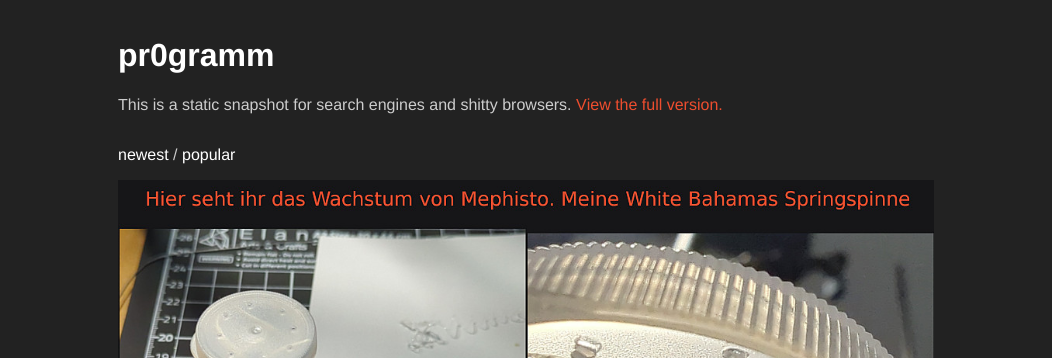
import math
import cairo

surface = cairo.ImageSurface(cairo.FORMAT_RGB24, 1052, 358)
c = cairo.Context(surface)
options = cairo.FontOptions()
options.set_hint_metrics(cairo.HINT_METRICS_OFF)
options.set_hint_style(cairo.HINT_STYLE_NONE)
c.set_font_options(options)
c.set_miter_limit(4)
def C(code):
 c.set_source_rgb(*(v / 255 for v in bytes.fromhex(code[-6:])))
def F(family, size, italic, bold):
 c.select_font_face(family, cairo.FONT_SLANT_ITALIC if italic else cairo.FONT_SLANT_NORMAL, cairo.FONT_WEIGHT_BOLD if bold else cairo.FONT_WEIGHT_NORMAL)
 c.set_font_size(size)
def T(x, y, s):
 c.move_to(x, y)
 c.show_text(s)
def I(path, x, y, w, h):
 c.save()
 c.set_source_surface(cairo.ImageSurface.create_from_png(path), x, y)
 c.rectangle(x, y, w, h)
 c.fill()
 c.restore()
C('222222')
c.paint()
F('Liberation Sans',32,0,1)
C('ffffff')
T(118,66,'pr0gramm')
F('Liberation Sans',16,0,0)
C('cccccc')
T(118,110,'This is a static snapshot for search engines and shitty browsers.')
C('ee4d2e')
T(576,110,'View the full version.')
C('ffffff')
T(118,160,'newest')
C('cccccc')
T(173,160,'/')
C('ffffff')
T(182,160,'popular')
I('1.png',118,180,816,178)
surface.write_to_png('o.png')
